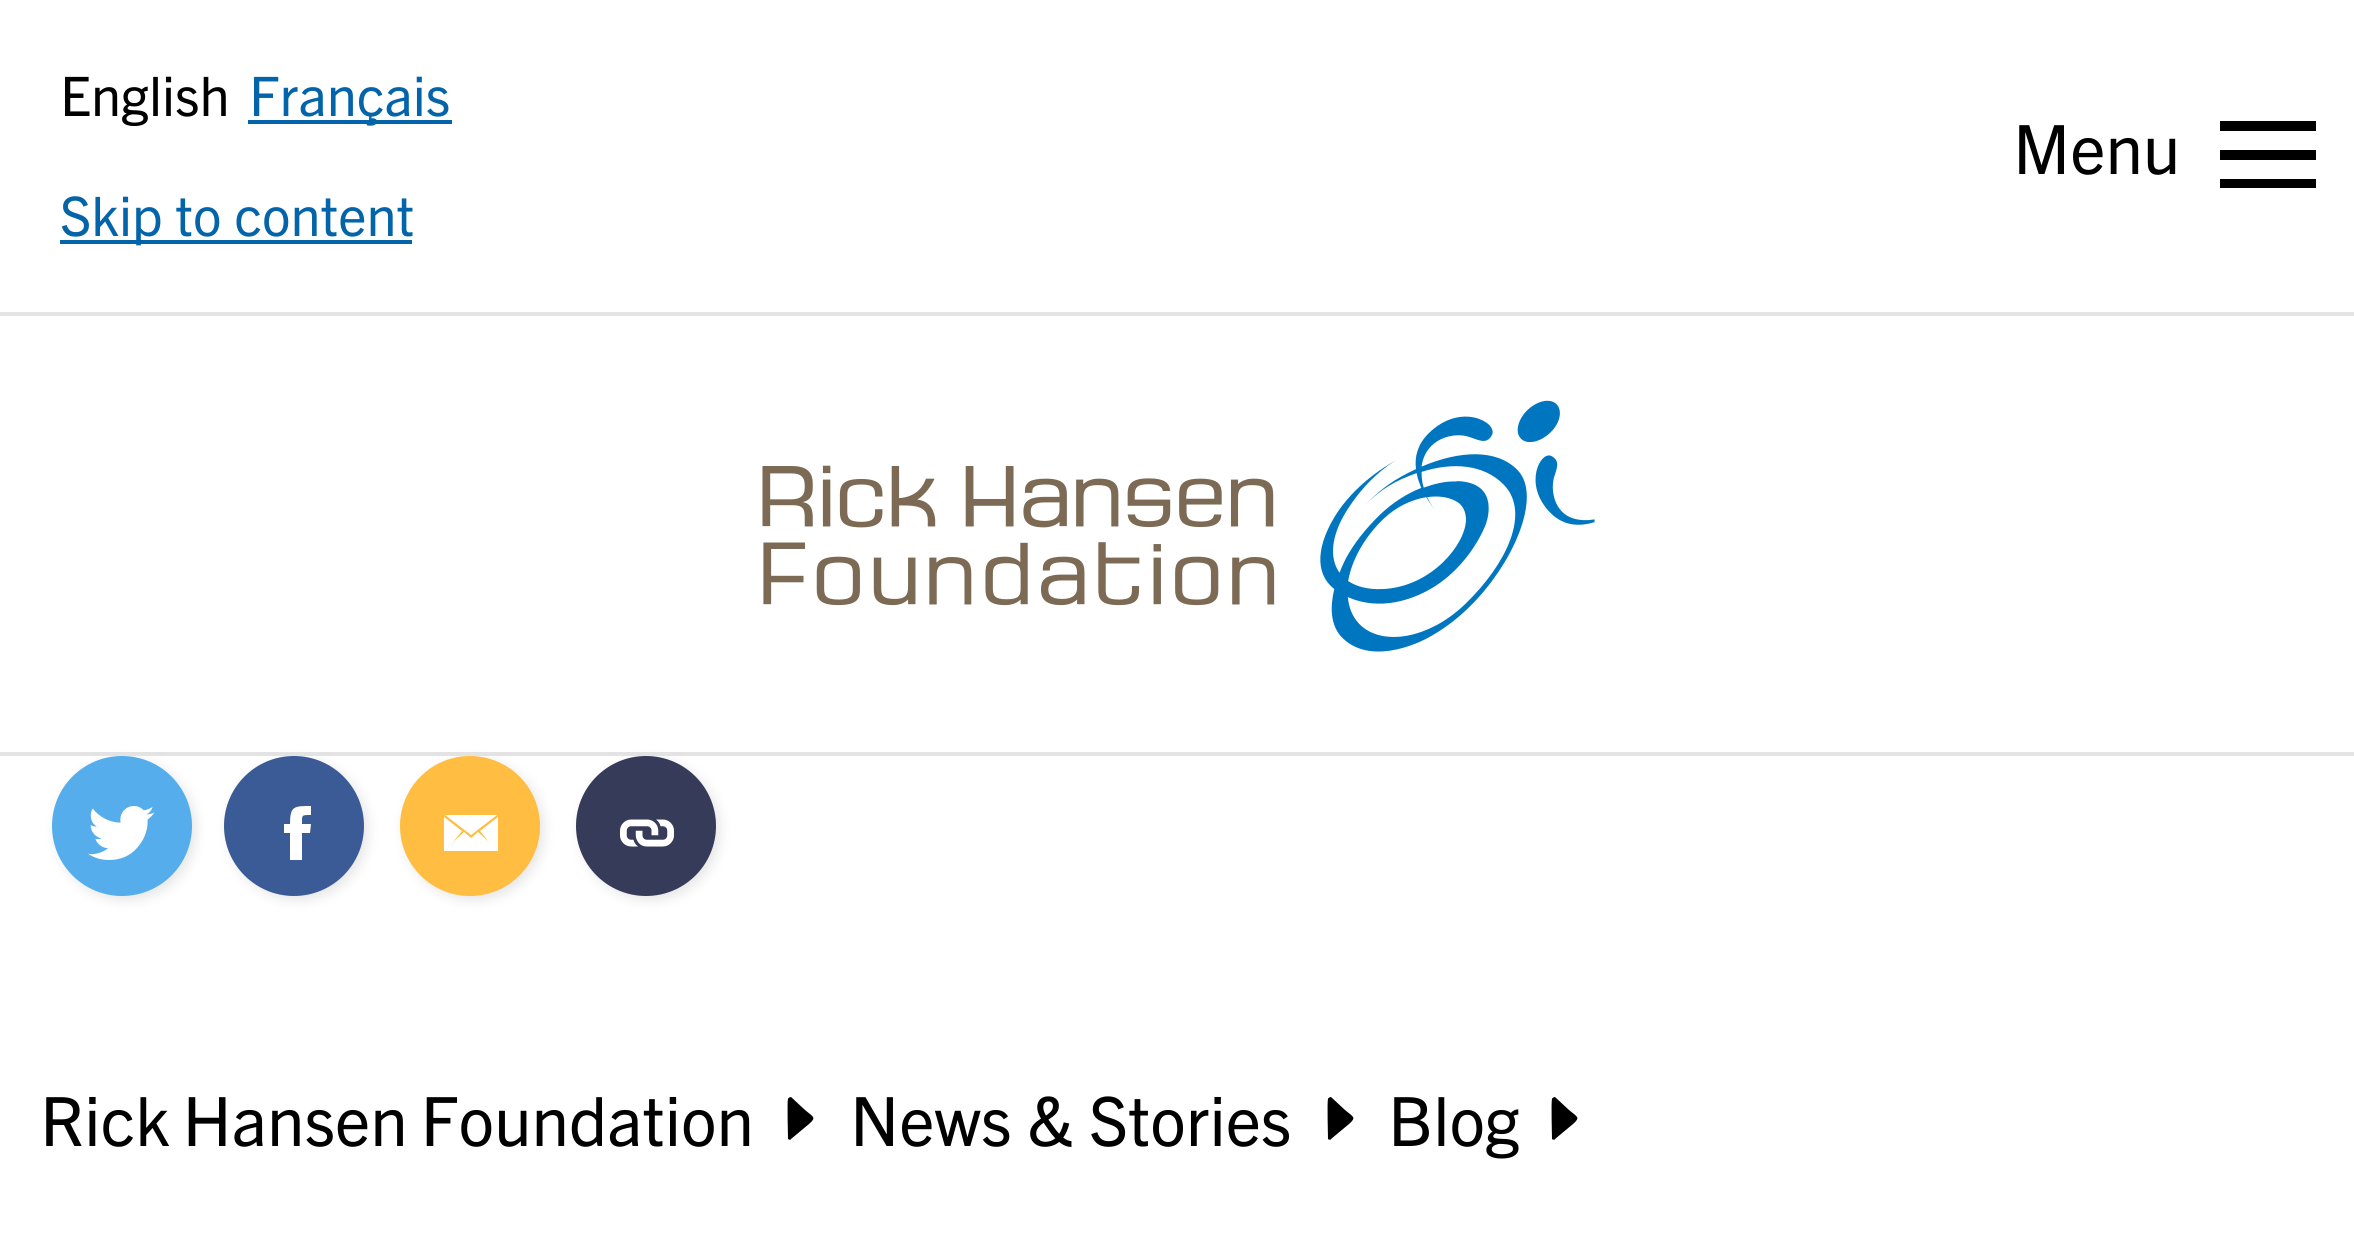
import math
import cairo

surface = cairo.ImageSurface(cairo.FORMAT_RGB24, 2354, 1252)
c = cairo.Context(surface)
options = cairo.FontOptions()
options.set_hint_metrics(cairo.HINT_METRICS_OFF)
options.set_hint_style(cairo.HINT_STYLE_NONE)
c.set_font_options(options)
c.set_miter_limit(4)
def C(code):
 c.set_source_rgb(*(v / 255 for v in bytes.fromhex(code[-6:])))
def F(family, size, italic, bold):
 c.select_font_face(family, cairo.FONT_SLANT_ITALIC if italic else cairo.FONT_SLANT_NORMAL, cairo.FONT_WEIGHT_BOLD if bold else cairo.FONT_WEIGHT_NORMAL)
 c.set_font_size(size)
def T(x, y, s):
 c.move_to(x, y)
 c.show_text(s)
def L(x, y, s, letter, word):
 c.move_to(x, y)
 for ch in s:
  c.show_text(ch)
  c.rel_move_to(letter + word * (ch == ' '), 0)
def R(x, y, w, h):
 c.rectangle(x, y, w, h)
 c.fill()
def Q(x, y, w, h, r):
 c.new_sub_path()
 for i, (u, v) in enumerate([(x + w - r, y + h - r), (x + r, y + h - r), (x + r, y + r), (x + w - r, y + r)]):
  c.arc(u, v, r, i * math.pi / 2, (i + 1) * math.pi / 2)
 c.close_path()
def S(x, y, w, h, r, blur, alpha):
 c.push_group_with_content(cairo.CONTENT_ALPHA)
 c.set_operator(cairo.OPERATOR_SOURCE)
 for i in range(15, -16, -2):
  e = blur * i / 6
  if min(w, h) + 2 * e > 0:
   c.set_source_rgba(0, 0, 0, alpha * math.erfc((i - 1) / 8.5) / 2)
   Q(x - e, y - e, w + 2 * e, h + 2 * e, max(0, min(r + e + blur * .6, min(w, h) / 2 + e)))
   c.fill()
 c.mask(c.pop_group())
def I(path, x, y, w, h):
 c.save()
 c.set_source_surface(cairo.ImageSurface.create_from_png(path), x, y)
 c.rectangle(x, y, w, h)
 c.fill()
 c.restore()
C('ffffff')
c.paint()
F('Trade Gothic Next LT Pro',54.5,0,0)
C('000000')
T(60,116,'English')
C('0364aa')
R(248,120,204,4)
T(249,116,'Français')
F('Trade Gothic Next LT Pro',68,0,0)
C('000000')
T(2013,174,'Menu')
c.new_path()
c.move_to(2220,160)
c.line_to(2220,150)
c.line_to(2316,150)
c.line_to(2316,160)
c.close_path()
c.move_to(2220,131)
c.line_to(2220,121)
c.line_to(2316,121)
c.line_to(2316,131)
c.close_path()
c.move_to(2220,188)
c.line_to(2220,179)
c.line_to(2316,179)
c.line_to(2316,188)
c.close_path()
c.fill()
C('e3e3e3')
R(0,312,2354,4)
C('818181')
S(56,760,140,140,70,6,.2)
S(228,760,140,140,70,6,.2)
S(404,760,140,140,70,6,.2)
S(580,760,140,140,70,6,.2)
C('e3e3e3')
R(0,752,2354,4)
I('1.png',762,400,833,252)
C('0364aa')
R(60,240,352,4)
F('Trade Gothic Next LT Pro',54.5,0,0)
T(60,236,'Skip to content')
C('56adeb')
c.new_path()
c.arc(122,826,70,0,2 * math.pi)
c.fill()
I('2.png',88,806,67,54)
C('3a5b96')
c.arc(294,826,70,0,2 * math.pi)
c.fill()
C('ffffff')
c.new_path()
c.move_to(302,824)
c.line_to(311,824)
c.line_to(310,833)
c.line_to(302,833)
c.line_to(302,860)
c.line_to(290,860)
c.line_to(290,833)
c.line_to(284,833)
c.line_to(284,824)
c.line_to(290,824)
c.curve_to(290,806,294,806,311,806)
c.line_to(311,815)
c.curve_to(301,815,302,815,302,824)
c.close_path()
c.fill()
C('ffbd41')
c.arc(470,826,70,0,2 * math.pi)
c.fill()
C('ffffff')
c.new_path()
c.move_to(498,851)
c.line_to(444,851)
c.line_to(444,817)
c.line_to(462,831)
c.line_to(453,842)
c.line_to(464,832)
c.line_to(471,838)
c.line_to(478,832)
c.line_to(489,842)
c.line_to(480,831)
c.line_to(498,817)
c.close_path()
c.move_to(497,815)
c.line_to(471,835)
c.line_to(445,815)
c.close_path()
c.fill()
C('363b5a')
c.arc(646,826,70,0,2 * math.pi)
c.fill()
I('3.png',620,819,54,28)
F('Trade Gothic Next LT Pro',68,0,0)
C('000000')
L(40,1146,'Rick Hansen Foundation',0,-3)
c.new_path()
c.move_to(791,1139)
c.curve_to(791,1140,789,1140,788,1139)
c.curve_to(788,1138,787,1101,788,1099)
c.curve_to(788,1098,790,1097,791,1097)
c.line_to(805,1110)
c.curve_to(813,1117,817,1117,809,1124)
c.close_path()
c.fill()
T(850,1146,'News & Stories')
c.new_path()
c.move_to(1331,1139)
c.curve_to(1331,1140,1329,1140,1328,1139)
c.curve_to(1328,1138,1327,1101,1328,1099)
c.curve_to(1328,1098,1330,1097,1331,1097)
c.line_to(1345,1110)
c.curve_to(1353,1117,1357,1117,1349,1124)
c.close_path()
c.fill()
T(1388,1146,'Blog')
c.new_path()
c.move_to(1555,1139)
c.curve_to(1555,1140,1553,1140,1552,1139)
c.curve_to(1552,1138,1551,1101,1552,1099)
c.curve_to(1552,1098,1554,1097,1555,1097)
c.line_to(1569,1110)
c.curve_to(1577,1117,1581,1117,1573,1124)
c.close_path()
c.fill()
surface.write_to_png('o.png')
